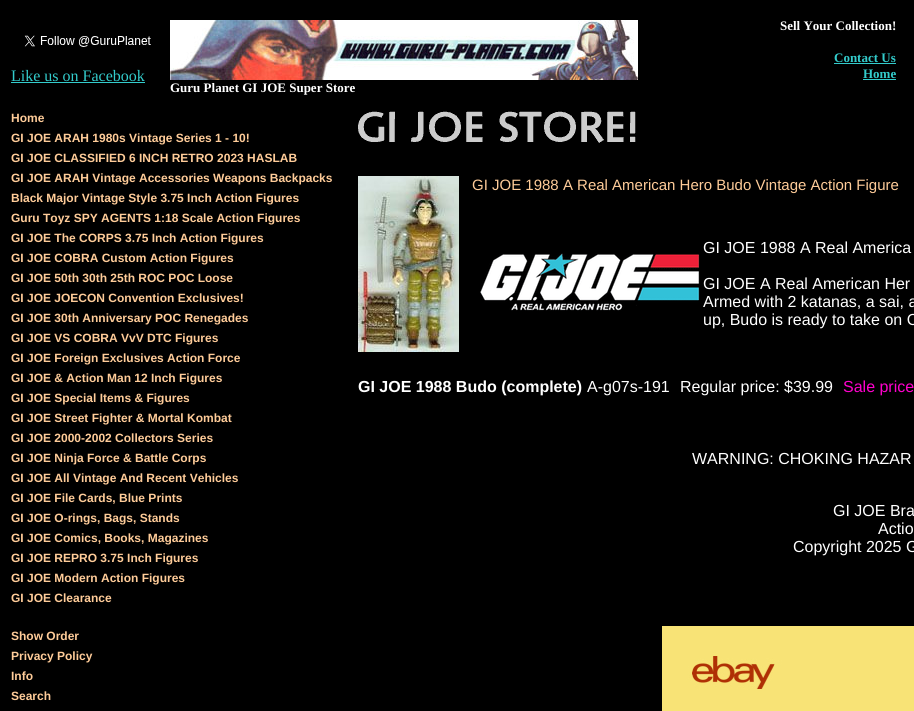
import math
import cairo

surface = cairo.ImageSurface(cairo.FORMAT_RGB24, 914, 711)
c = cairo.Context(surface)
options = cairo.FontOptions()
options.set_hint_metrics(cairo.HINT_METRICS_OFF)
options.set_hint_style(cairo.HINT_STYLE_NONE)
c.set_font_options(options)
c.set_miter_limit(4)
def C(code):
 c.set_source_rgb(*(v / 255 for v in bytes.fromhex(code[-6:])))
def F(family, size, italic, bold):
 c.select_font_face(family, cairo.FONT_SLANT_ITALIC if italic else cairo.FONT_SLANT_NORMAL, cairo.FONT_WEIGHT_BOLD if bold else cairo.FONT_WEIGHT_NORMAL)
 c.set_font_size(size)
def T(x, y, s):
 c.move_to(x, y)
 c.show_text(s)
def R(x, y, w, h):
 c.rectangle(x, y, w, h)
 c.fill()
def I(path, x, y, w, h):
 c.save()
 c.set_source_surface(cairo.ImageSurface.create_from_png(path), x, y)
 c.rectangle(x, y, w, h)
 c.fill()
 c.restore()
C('000000')
c.paint()
I('1.png',24,35,127,12)
F('Liberation Serif',16,0,0)
C('33cccc')
T(11,81,'Like us on Facebook')
R(11,82,134,1)
F('Liberation Serif',13,0,1)
C('ffffff')
T(780,30,'Sell Your Collection!')
C('33cccc')
T(834,62,'Contact Us')
R(834,63,62,1)
T(863,78,'Home')
R(863,79,33,1)
I('2.png',170,20,468,60)
C('ffffff')
T(170,92,'Guru Planet GI JOE Super Store')
F('Liberation Sans',12,0,1)
C('ffcc99')
T(11,122,'Home')
T(11,142,'GI JOE ARAH 1980s Vintage Series 1 - 10!')
T(11,162,'GI JOE CLASSIFIED 6 INCH RETRO 2023 HASLAB')
T(11,182,'GI JOE ARAH Vintage Accessories Weapons Backpacks')
T(11,202,'Black Major Vintage Style 3.75 Inch Action Figures')
T(11,222,'Guru Toyz SPY AGENTS 1:18 Scale Action Figures')
T(11,242,'GI JOE The CORPS 3.75 Inch Action Figures')
T(11,262,'GI JOE COBRA Custom Action Figures')
T(11,282,'GI JOE 50th 30th 25th ROC POC Loose')
T(11,302,'GI JOE JOECON Convention Exclusives!')
T(11,322,'GI JOE 30th Anniversary POC Renegades')
T(11,342,'GI JOE VS COBRA VvV DTC Figures')
T(11,362,'GI JOE Foreign Exclusives Action Force')
T(11,382,'GI JOE & Action Man 12 Inch Figures')
T(11,402,'GI JOE Special Items & Figures')
T(11,422,'GI JOE Street Fighter & Mortal Kombat')
T(11,442,'GI JOE 2000-2002 Collectors Series')
T(11,462,'GI JOE Ninja Force & Battle Corps')
T(11,482,'GI JOE All Vintage And Recent Vehicles')
T(11,502,'GI JOE File Cards, Blue Prints')
T(11,522,'GI JOE O-rings, Bags, Stands')
T(11,542,'GI JOE Comics, Books, Magazines')
T(11,562,'GI JOE REPRO 3.75 Inch Figures')
T(11,582,'GI JOE Modern Action Figures')
T(11,602,'GI JOE Clearance')
T(11,640,'Show Order')
T(11,660,'Privacy Policy')
T(11,680,'Info')
T(11,700,'Search')
I('3.png',358,111,278,32)
I('4.png',358,176,101,176)
F('Liberation Sans',15,0,0)
T(472,190,'GI JOE 1988 A Real American Hero Budo Vintage Action Figure')
F('Liberation Sans',16,0,0)
C('ffffff')
T(703,253,'GI JOE 1988 A Real America')
I('5.png',480,253,220,58)
T(703,289,'GI JOE A Real American Her')
T(703,307,'Armed with 2 katanas, a sai, a')
T(703,325,'up, Budo is ready to take on C')
F('Liberation Sans',16,0,1)
T(358,392,'GI JOE 1988 Budo (complete)')
F('Liberation Sans',16,0,0)
T(587,392,'A-g07s-191')
T(680,392,'Regular price: $39.99')
C('ff00cc')
T(843,392,'Sale price')
C('ffffff')
T(692,464,'WARNING: CHOKING HAZAR')
T(833,516,'GI JOE Bra')
T(878,534,'Actio')
T(793,552,'Copyright 2025 G')
I('6.png',662,626,252,85)
surface.write_to_png('o.png')
